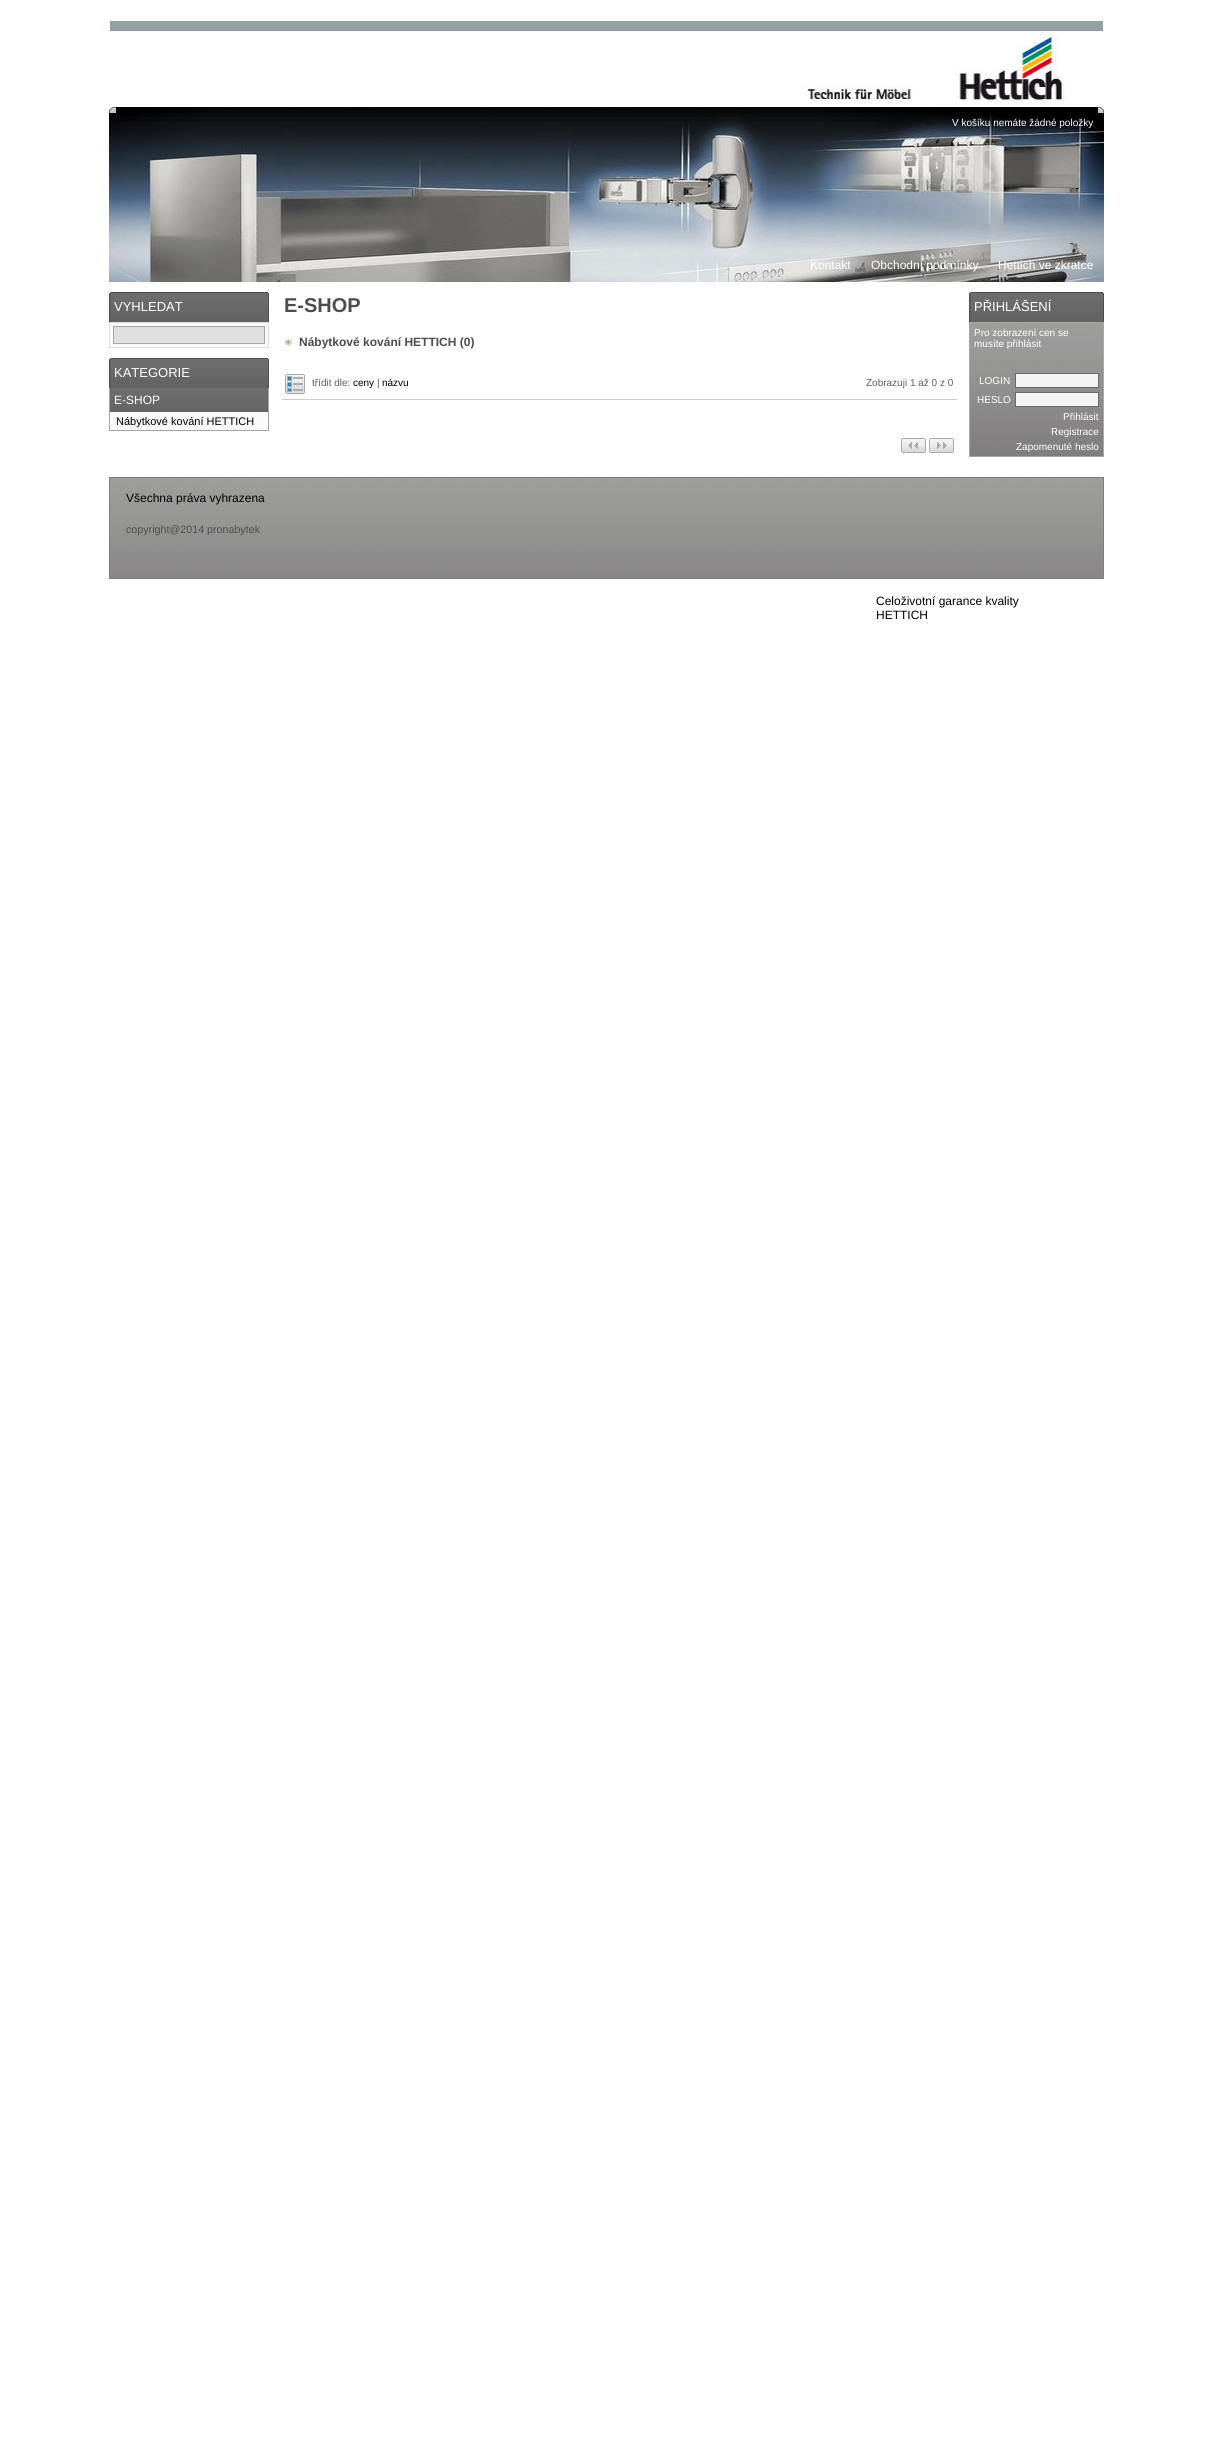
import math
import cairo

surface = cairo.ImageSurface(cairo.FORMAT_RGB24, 1212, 2460)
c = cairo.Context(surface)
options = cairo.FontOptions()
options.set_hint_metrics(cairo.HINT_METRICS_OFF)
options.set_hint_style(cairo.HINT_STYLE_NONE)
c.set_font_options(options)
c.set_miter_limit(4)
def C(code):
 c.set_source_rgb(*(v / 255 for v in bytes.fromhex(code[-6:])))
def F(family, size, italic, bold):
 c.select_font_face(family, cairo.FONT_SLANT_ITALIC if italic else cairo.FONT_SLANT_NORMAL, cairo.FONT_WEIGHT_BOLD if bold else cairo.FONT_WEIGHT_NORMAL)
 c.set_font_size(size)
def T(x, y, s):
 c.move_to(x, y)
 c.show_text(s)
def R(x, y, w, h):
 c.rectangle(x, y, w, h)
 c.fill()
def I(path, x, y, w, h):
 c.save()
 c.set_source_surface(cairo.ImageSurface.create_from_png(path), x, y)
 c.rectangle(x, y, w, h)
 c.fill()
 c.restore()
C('ffffff')
c.paint()
I('1.png',110,21,993,80)
I('2.png',109,107,995,175)
I('3.png',109,107,7,6)
I('4.png',1098,107,6,6)
F('Liberation Sans',10,0,0)
C('ffffff')
T(952,126,'V košíku nemáte žádné položky')
F('Liberation Sans',12,0,0)
T(810,269,'Kontakt')
T(871,269,'Obchodní podmínky')
T(998,269,'Hettich ve zkratce')
I('5.png',111,292,157,30)
I('6.png',109,292,2,30)
I('7.png',268,292,1,30)
F('Liberation Sans',13,0,0)
T(114,311,'VYHLEDAT')
C('fafafa')
R(110,323,158,24)
C('dfdfdf')
R(109,322,160,1)
R(268,322,1,26)
R(109,347,160,1)
R(109,322,1,26)
C('e0e0e0')
c.rectangle(113.5,326.5,151,17)
c.fill_preserve()
C('a7a7a7')
c.set_line_width(1)
c.stroke()
I('5.png',111,358,157,30)
I('6.png',109,358,2,30)
I('7.png',268,358,1,30)
C('ffffff')
T(114,377,'KATEGORIE')
C('a7a7a7')
R(268,388,1,43)
R(109,430,160,1)
R(109,388,1,43)
I('8.png',110,388,158,24)
F('Liberation Sans',12,0,0)
C('ffffff')
T(114,404,'E-SHOP')
C('fafafa')
R(110,412,158,18)
F('Liberation Sans',11,0,0)
C('000000')
T(116,425,'Nábytkové kování HETTICH')
F('Liberation Sans',20,0,1)
C('4d4d4d')
T(284,312,'E-SHOP')
I('9.png',285,339,7,7)
F('Liberation Sans',12,0,1)
T(299,346,'Nábytkové kování HETTICH (0)')
C('cccccc')
R(282,399,675,1)
I('10.png',285,374,20,20)
F('Liberation Sans',10,0,0)
C('5d5d5d')
T(312,386,'třídit dle:')
C('000000')
T(353,386,'ceny')
C('5d5d5d')
T(377,386,'|')
C('000000')
T(382,386,'názvu')
C('5d5d5d')
T(866,386,'Zobrazuji 1 až 0 z 0')
I('11.png',901,438,25,15)
I('12.png',929,438,25,15)
I('13.png',971,292,132,30)
I('14.png',969,292,2,30)
I('7.png',1103,292,1,30)
F('Liberation Sans',13,0,0)
C('ffffff')
T(974,311,'PŘIHLÁŠENÍ')
I('15.png',970,323,133,133)
c.rectangle(969.5,322.5,134,134)
C('a7a7a7')
c.stroke()
F('Liberation Sans',10,0,0)
C('ffffff')
T(974,336,'Pro zobrazení cen se')
T(974,347,'musíte přihlásit')
T(979,384,'LOGIN')
C('f4f4f4')
c.rectangle(1015.5,373.5,83,14)
c.fill_preserve()
C('6a6a6a')
c.stroke()
C('ffffff')
T(977,403,'HESLO')
C('f4f4f4')
c.rectangle(1015.5,392.5,83,14)
c.fill_preserve()
C('6a6a6a')
c.stroke()
C('ffffff')
T(1063,420,'Přihlásit')
T(1051,435,'Registrace')
T(1016,450,'Zapomenuté heslo')
I('16.png',110,478,993,100)
c.rectangle(109.5,477.5,994,101)
C('7f7f7f')
c.stroke()
F('Liberation Sans',12,0,0)
C('000000')
T(126,502,'Všechna práva vyhrazena')
F('Liberation Sans',10.7,0,0)
C('4d4d4d')
T(126,533,'copyright@2014 pronabytek')
F('Liberation Sans',12,0,0)
C('000000')
T(876,605,'Celoživotní garance kvality')
T(876,619,'HETTICH')
surface.write_to_png('o.png')
